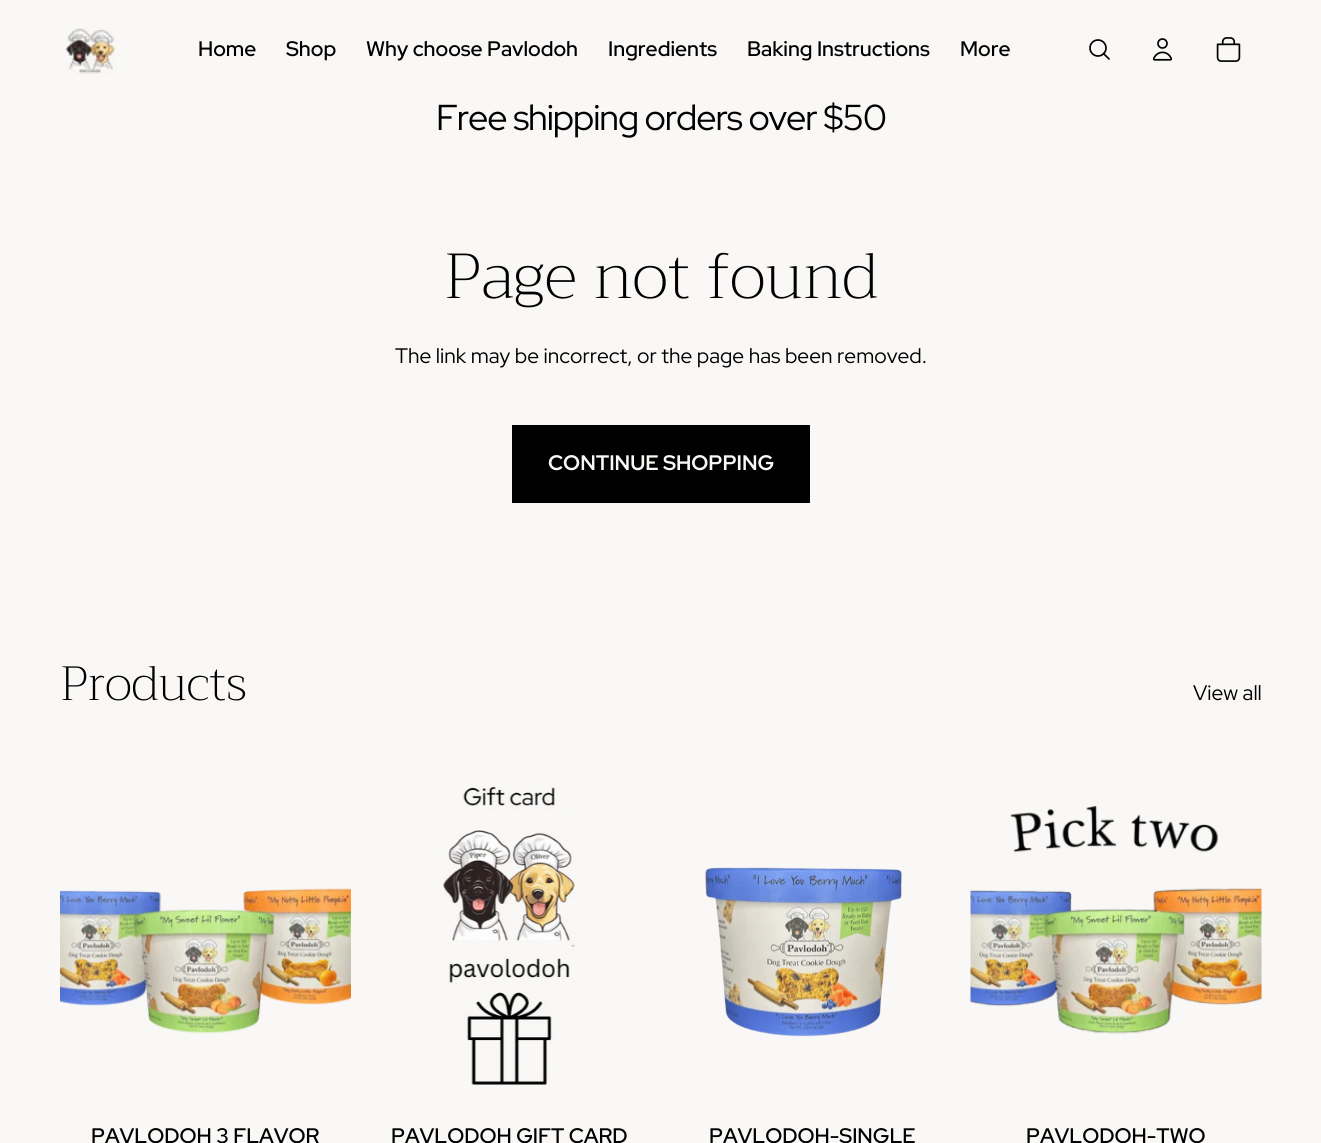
import math
import cairo

surface = cairo.ImageSurface(cairo.FORMAT_RGB24, 1321, 1143)
c = cairo.Context(surface)
options = cairo.FontOptions()
options.set_hint_metrics(cairo.HINT_METRICS_OFF)
options.set_hint_style(cairo.HINT_STYLE_NONE)
c.set_font_options(options)
c.set_miter_limit(4)
def C(code):
 c.set_source_rgb(*(v / 255 for v in bytes.fromhex(code[-6:])))
def F(family, size, italic, bold):
 c.select_font_face(family, cairo.FONT_SLANT_ITALIC if italic else cairo.FONT_SLANT_NORMAL, cairo.FONT_WEIGHT_BOLD if bold else cairo.FONT_WEIGHT_NORMAL)
 c.set_font_size(size)
def T(x, y, s):
 c.move_to(x, y)
 c.show_text(s)
def L(x, y, s, letter, word):
 c.move_to(x, y)
 for ch in s:
  c.show_text(ch)
  c.rel_move_to(letter + word * (ch == ' '), 0)
def R(x, y, w, h):
 c.rectangle(x, y, w, h)
 c.fill()
def I(path, x, y, w, h):
 c.save()
 c.set_source_surface(cairo.ImageSurface.create_from_png(path), x, y)
 c.rectangle(x, y, w, h)
 c.fill()
 c.restore()
C('f9f8f6')
c.paint()
I('1.png',65,27,55,47)
F('Red Hat Display SemiBold',21,0,0)
C('000000')
T(198,56,'Home')
T(286,56,'Shop')
T(366,56,'Why choose Pavlodoh')
T(608,56,'Ingredients')
T(747,56,'Baking Instructions')
T(960,56,'More')
c.new_path()
c.arc(1098,48,8,0,2 * math.pi)
c.set_line_width(1.7)
c.stroke()
c.new_path()
c.move_to(1103.5,53.5)
c.line_to(1109,59)
c.set_line_cap(cairo.LINE_CAP_ROUND)
c.set_line_join(cairo.LINE_JOIN_ROUND)
c.stroke()
I('2.png',1152,38,21,23)
I('3.png',1216,37,25,25)
F('Red Hat Display',36,0,0)
L(436,130,'Free shipping orders over $50',-1.1,0)
F('Trirong Light',63.5,0,0)
T(444,298,'Page not found')
F('Red Hat Display',21,0,0)
T(395,363,'The link may be incorrect, or the page has been removed.')
R(512,425,298,78)
F('Red Hat Display',21,0,1)
C('f9f8f6')
T(548,470,'CONTINUE SHOPPING')
F('Trirong Light',48,0,0)
C('000000')
T(60,700,'Products')
F('Red Hat Display',21,0,0)
T(1193,700,'View all')
I('4.png',60,888,291,146)
F('Red Hat Display SemiBold',21,0,0)
T(91,1143,'PAVLODOH 3 FLAVOR')
I('5.png',443,785,132,300)
T(391,1143,'PAVLODOH GIFT CARD')
I('6.png',705,867,197,170)
T(709,1143,'PAVLODOH-SINGLE')
I('7.png',970,806,292,228)
T(1026,1143,'PAVLODOH-TWO')
surface.write_to_png('o.png')
